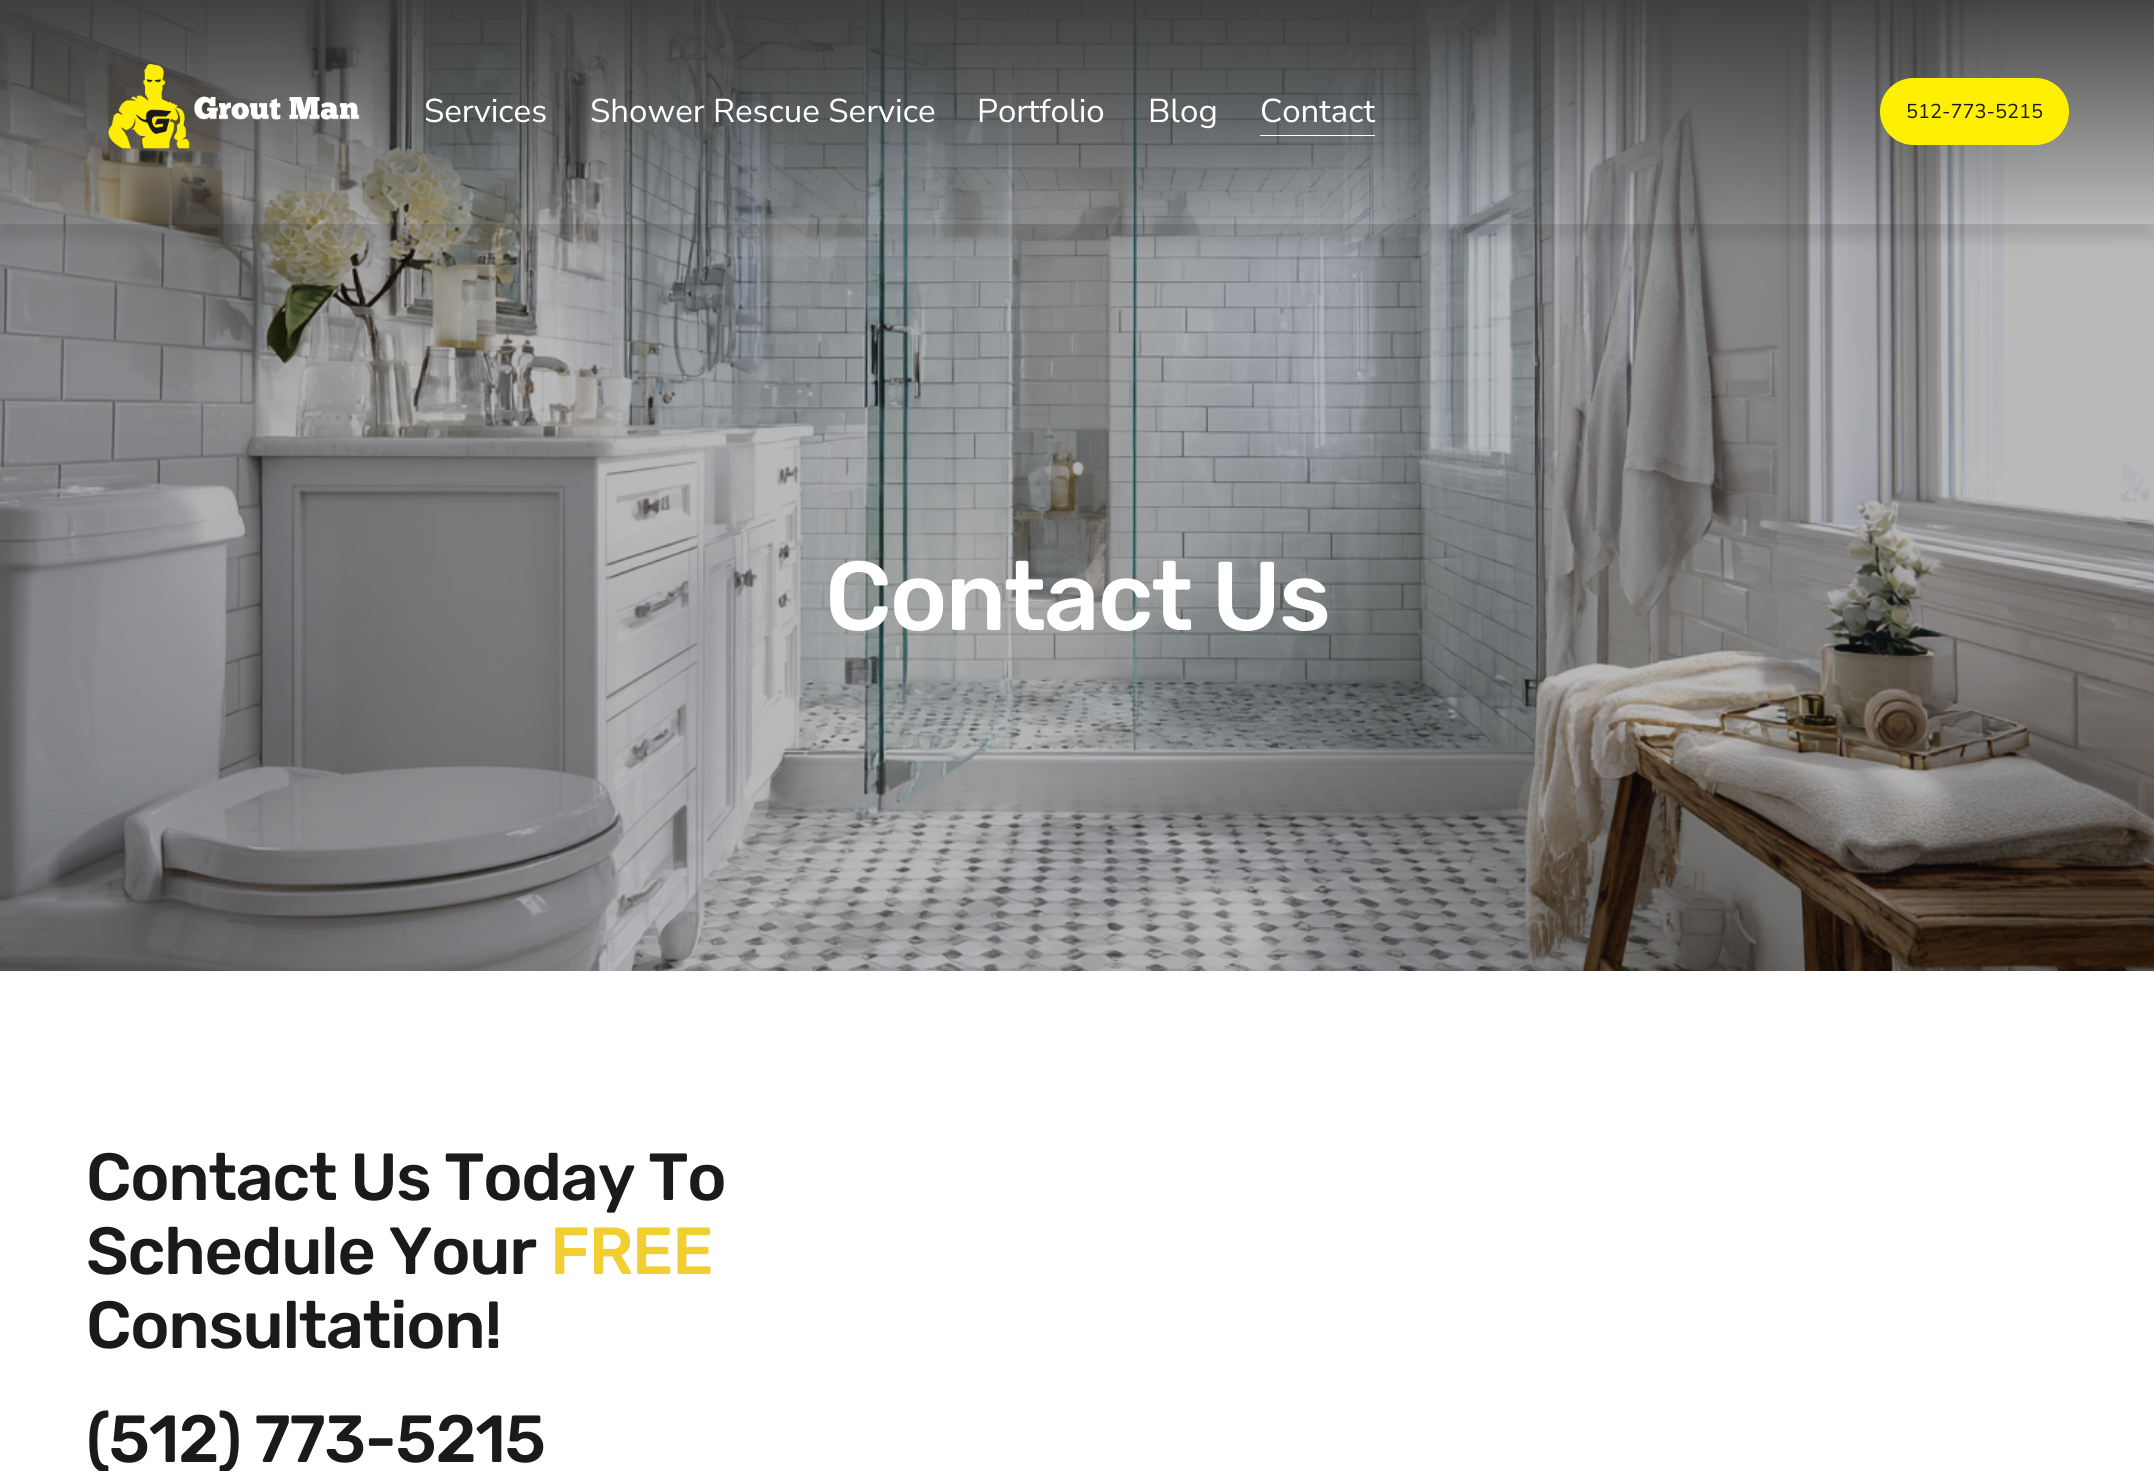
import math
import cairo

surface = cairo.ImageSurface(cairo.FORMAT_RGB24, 2154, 1471)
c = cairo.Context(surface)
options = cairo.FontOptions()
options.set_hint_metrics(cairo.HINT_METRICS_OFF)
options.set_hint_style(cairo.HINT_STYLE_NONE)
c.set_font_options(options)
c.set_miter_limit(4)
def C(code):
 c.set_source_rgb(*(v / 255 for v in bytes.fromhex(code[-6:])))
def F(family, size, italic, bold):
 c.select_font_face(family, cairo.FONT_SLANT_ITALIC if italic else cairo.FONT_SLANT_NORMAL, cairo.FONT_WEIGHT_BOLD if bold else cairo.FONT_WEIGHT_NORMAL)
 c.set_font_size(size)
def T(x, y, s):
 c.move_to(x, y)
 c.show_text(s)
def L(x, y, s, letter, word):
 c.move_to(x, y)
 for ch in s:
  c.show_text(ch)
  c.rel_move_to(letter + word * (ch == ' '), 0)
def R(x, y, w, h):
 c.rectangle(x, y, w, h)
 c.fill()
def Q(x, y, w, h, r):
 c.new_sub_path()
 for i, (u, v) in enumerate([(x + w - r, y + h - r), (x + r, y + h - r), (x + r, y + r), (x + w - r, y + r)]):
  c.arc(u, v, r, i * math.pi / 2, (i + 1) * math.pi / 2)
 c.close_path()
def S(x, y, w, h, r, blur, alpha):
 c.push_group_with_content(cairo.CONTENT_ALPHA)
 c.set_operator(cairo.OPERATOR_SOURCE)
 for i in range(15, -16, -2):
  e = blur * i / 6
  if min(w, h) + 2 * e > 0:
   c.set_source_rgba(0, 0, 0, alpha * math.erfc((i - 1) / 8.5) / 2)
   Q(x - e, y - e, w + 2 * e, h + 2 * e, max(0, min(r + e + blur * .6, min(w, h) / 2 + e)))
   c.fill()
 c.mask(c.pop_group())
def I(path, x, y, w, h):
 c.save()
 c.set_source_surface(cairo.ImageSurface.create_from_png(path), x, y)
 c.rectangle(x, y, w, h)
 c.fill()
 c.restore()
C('ffffff')
c.paint()
I('2.png',0,0,2154,971)
c.save()
c.set_fill_rule(cairo.FILL_RULE_EVEN_ODD)
c.new_path()
c.move_to(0,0)
c.line_to(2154,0)
c.line_to(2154,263)
c.line_to(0,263)
c.close_path()
c.move_to(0,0)
c.line_to(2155,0)
c.line_to(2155,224)
c.line_to(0,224)
c.close_path()
c.clip()
C('1b1919')
S(0,15,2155,224,0,7.5,.15)
c.restore()
gradient = cairo.LinearGradient(1078,0,1078,224)
gradient.add_color_stop_rgba(0,0.22,0.22,0.22,.9)
gradient.add_color_stop_rgba(1,0.22,0.22,0.22,0)
c.set_source(gradient)
R(0,0,2154,219)
I('1.png',108,63,252,86)
F('Nunito Sans',33,0,0)
C('ffffff')
T(424,122,'Services')
T(590,122,'Shower Rescue Service')
T(977,122,'Portfolio')
T(1148,122,'Blog')
R(1260,135,115,1)
T(1260,122,'Contact')
C('fff003')
Q(1880,78,189,67,33.5)
c.fill()
F('Nunito Sans',20,0,0)
C('1b1919')
T(1906,118,'512-773-5215')
F('Rubik Medium',97.5,0,0)
C('ffffff')
L(825,630,'Contact Us',-2,0)
F('Rubik Medium',66.5,0,0)
C('1b1919')
L(86,1200,'Contact Us Today To',-1.3,0)
L(86,1274,'Schedule Your',-1.3,0)
C('f1ce31')
L(550,1274,'FREE',-1.3,0)
C('1b1919')
L(86,1348,'Consultation!',-1.3,0)
L(86,1462,'(512) 773-5215',-1.3,0)
surface.write_to_png('o.png')
